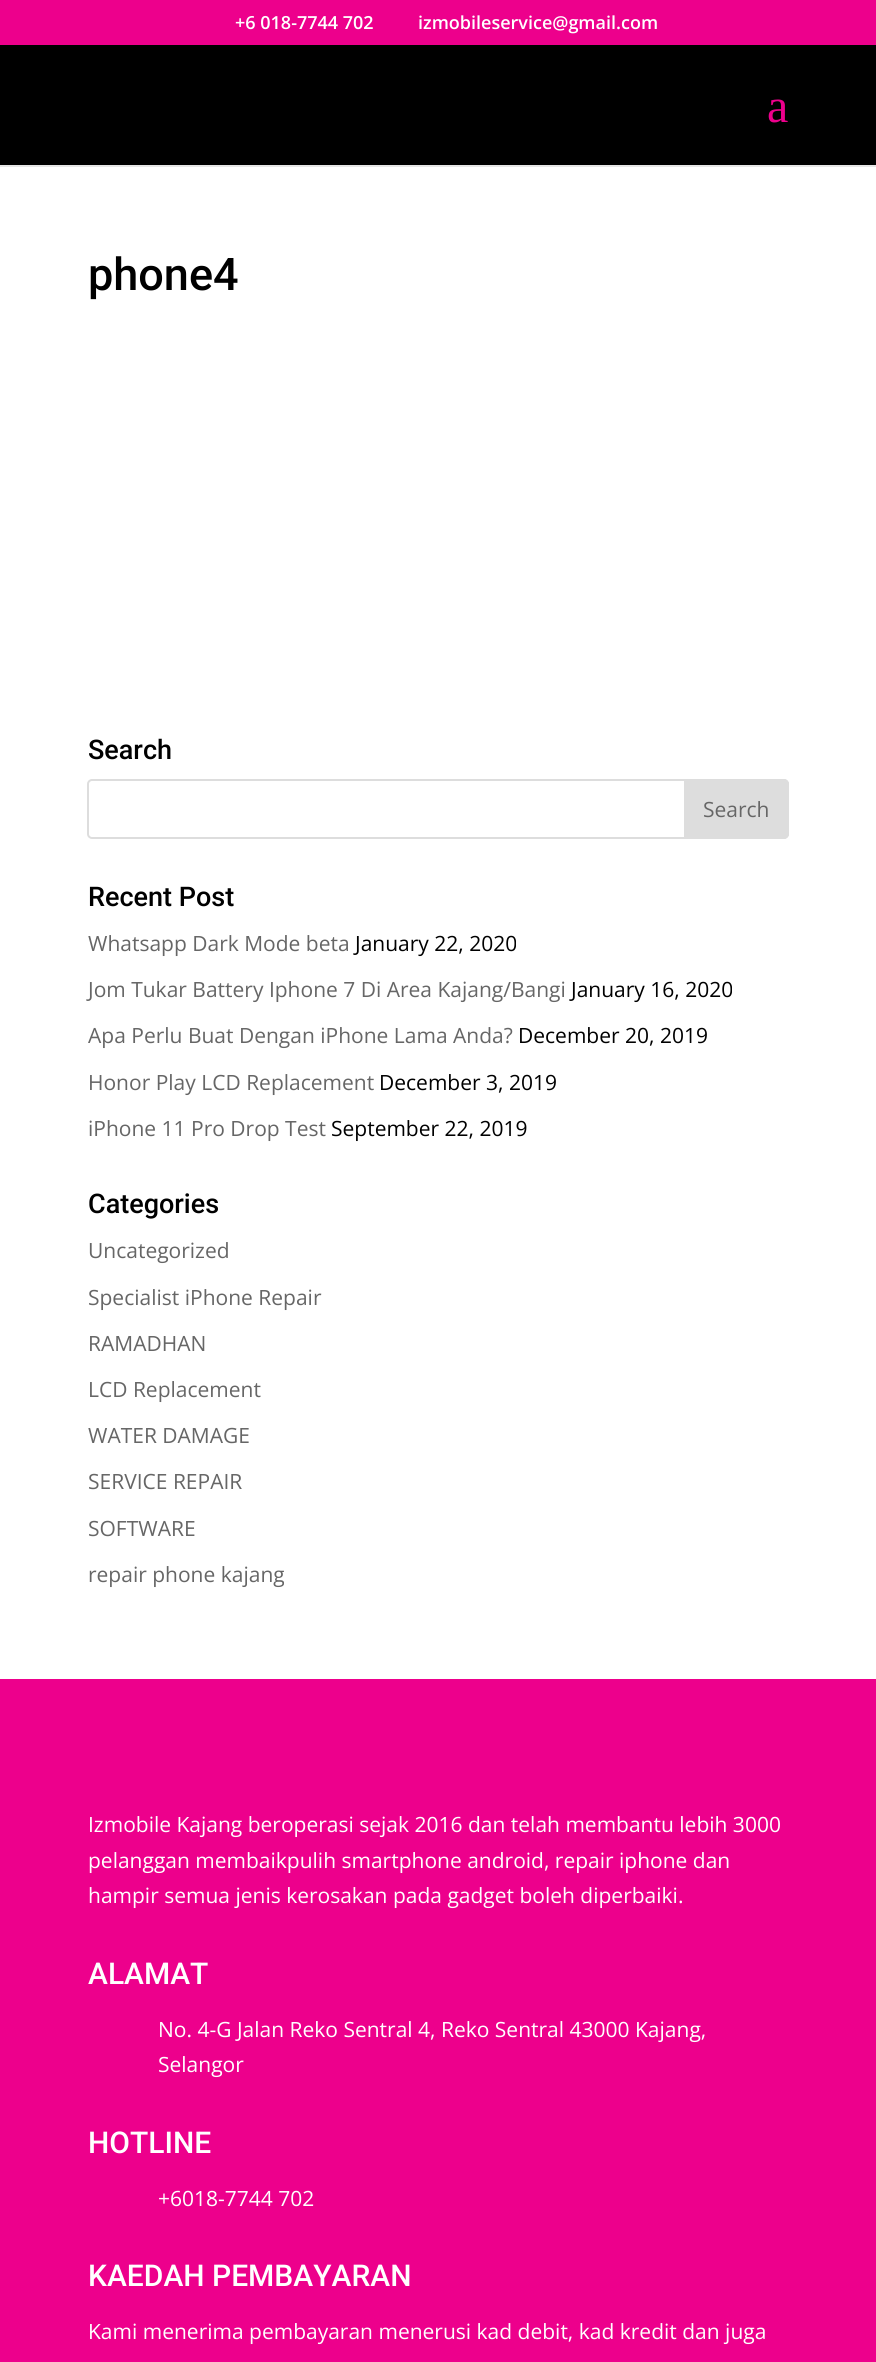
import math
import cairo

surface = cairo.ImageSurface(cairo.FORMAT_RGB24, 876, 2362)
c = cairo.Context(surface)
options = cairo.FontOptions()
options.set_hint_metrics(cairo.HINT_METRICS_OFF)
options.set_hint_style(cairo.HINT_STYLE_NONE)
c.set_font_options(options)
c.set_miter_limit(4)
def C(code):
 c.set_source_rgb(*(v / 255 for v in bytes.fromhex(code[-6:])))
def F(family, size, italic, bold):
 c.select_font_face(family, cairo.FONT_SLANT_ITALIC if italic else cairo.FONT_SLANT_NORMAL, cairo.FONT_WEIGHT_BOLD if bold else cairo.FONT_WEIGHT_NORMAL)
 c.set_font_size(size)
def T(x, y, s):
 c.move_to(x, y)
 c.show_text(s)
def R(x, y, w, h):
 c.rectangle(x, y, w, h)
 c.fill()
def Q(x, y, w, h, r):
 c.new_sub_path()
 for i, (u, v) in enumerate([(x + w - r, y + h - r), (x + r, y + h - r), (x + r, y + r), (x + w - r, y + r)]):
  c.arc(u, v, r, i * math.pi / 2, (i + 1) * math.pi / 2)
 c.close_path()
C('ffffff')
c.paint()
C('ed008c')
R(0,0,876,45)
F('Open Sans SemiBold',18,0,0)
C('ffffff')
T(235,29,'+6 018-7744 702')
T(418,29,'izmobileservice@gmail.com')
C('e6e6e6')
R(0,165,876,2)
C('000000')
R(0,45,876,120)
F('Liberation Serif',48,0,0)
C('ed008c')
T(767,122,'a')
F('Roboto Medium',45,0,0)
C('000000')
T(88,290,'phone4')
F('Roboto Medium',27,0,0)
T(88,759,'Search')
Q(88,780,700,58,4)
C('dddddd')
c.stroke()
c.new_path()
c.move_to(685,780)
c.line_to(784,780)
c.curve_to(786,780,788,782,788,784)
c.line_to(788,834)
c.curve_to(788,836,786,838,784,838)
c.line_to(685,838)
c.close_path()
c.fill_preserve()
c.stroke()
F('Open Sans',21,0,0)
C('666666')
T(703,817,'Search')
F('Roboto Medium',27,0,0)
C('000000')
T(88,906,'Recent Post')
F('Open Sans',21,0,0)
C('666666')
T(88,951,'Whatsapp Dark Mode beta')
C('000000')
T(355,951,'January 22, 2020')
C('666666')
T(88,997,'Jom Tukar Battery Iphone 7 Di Area Kajang/Bangi')
C('000000')
T(571,997,'January 16, 2020')
C('666666')
T(88,1043,'Apa Perlu Buat Dengan iPhone Lama Anda?')
C('000000')
T(518,1043,'December 20, 2019')
C('666666')
T(88,1090,'Honor Play LCD Replacement')
C('000000')
T(379,1090,'December 3, 2019')
C('666666')
T(88,1136,'iPhone 11 Pro Drop Test')
C('000000')
T(331,1136,'September 22, 2019')
F('Roboto Medium',27,0,0)
T(88,1213,'Categories')
F('Open Sans',21,0,0)
C('666666')
T(88,1258,'Uncategorized')
T(88,1305,'Specialist iPhone Repair')
T(88,1351,'RAMADHAN')
T(88,1397,'LCD Replacement')
T(88,1443,'WATER DAMAGE')
T(88,1489,'SERVICE REPAIR')
T(88,1536,'SOFTWARE')
T(88,1582,'repair phone kajang')
C('ed008c')
R(0,1679,876,683)
C('ffffff')
T(88,1832,'Izmobile Kajang beroperasi sejak 2016 dan telah membantu lebih 3000')
T(88,1868,'pelanggan membaikpulih smartphone android, repair iphone dan')
T(88,1903,'hampir semua jenis kerosakan pada gadget boleh diperbaiki.')
F('Roboto Medium',30,0,0)
T(88,1984,'ALAMAT')
F('Open Sans',21,0,0)
T(158,2037,'No. 4-G Jalan Reko Sentral 4, Reko Sentral 43000 Kajang,')
T(158,2072,'Selangor')
F('Roboto Medium',30,0,0)
T(88,2153,'HOTLINE')
F('Open Sans',21,0,0)
T(158,2206,'+6018-7744 702')
F('Roboto Medium',30,0,0)
T(88,2286,'KAEDAH PEMBAYARAN')
F('Open Sans',21,0,0)
T(88,2339,'Kami menerima pembayaran menerusi kad debit, kad kredit dan juga')
surface.write_to_png('o.png')
